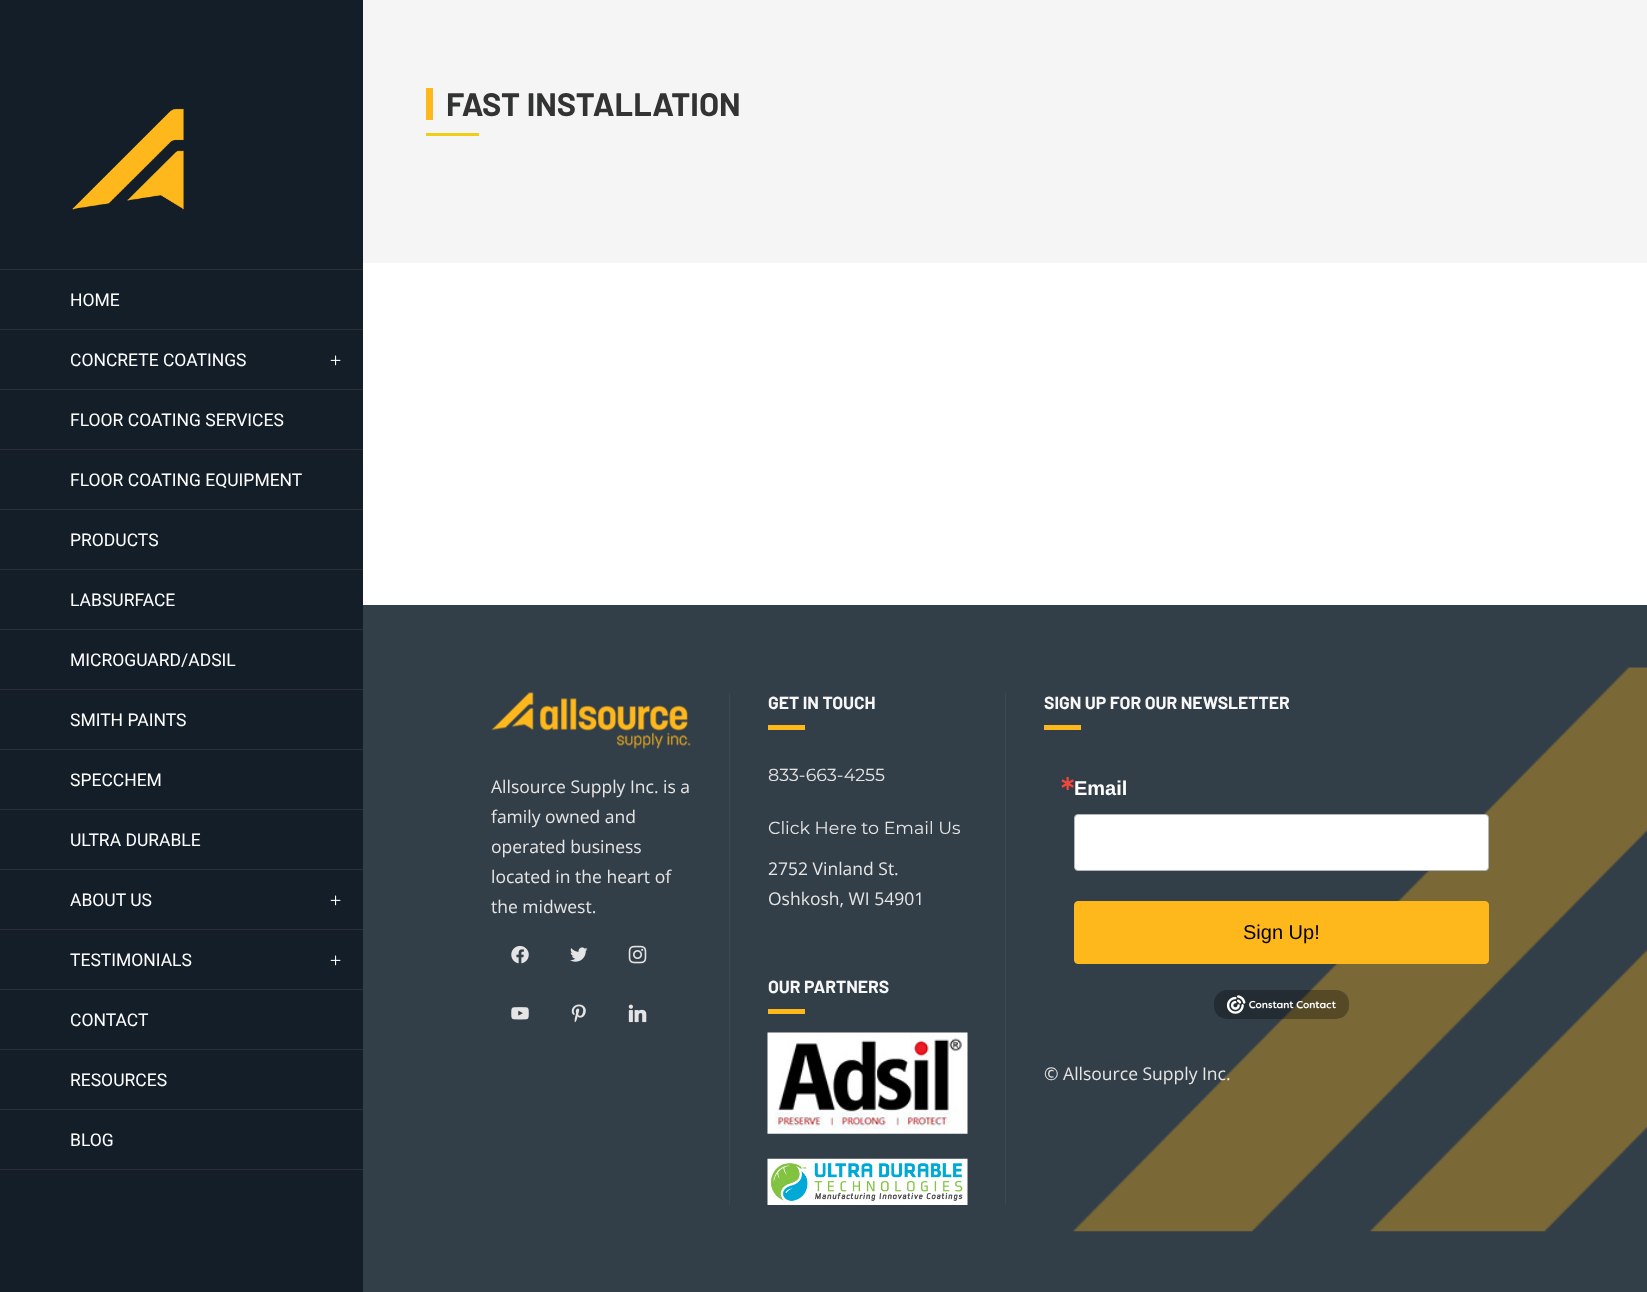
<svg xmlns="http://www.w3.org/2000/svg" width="1647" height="1292">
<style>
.a{font:bold 32.5px Barlow;fill:#323333}
.b{font:17.5px Roboto;fill:#fff}
.c{font:17.5px Open Sans;fill:#e6e5e5}
.d{font:bold 17.5px Barlow;fill:#f7f7f7}
.e{font:17.5px Montserrat;fill:#e6e5e5}
.f{font:bold 20px DejaVu Sans;fill:#f5463b}
.g{font:bold 20px Liberation Sans;fill:#fff}
.h{font:20px Liberation Sans;fill:#000}
</style>
<rect width="100%" height="100%" fill="#fff"/>
<path fill="#f6f5f5" d="M363 0h1284v263H363z"/>
<path fill="#ffb81c" d="M426 88h7v32H426z"/>
<path fill="#eecf16" d="M426 133h53v3H426z"/>
<path fill="#131e29" d="M0 0h363v1292H0z"/>
<image href="1.png" x="72" y="108" width="112" height="102"/>
<path fill="#2c3036" d="M0 269h363v1H0z"/>
<path fill="#2c3036" d="M0 329h363v1H0z"/>
<image href="2.png" x="330" y="355" width="11" height="11"/>
<path fill="#2c3036" d="M0 389h363v1H0z"/>
<path fill="#2c3036" d="M0 449h363v1H0z"/>
<path fill="#2c3036" d="M0 509h363v1H0z"/>
<path fill="#2c3036" d="M0 569h363v1H0z"/>
<path fill="#2c3036" d="M0 629h363v1H0z"/>
<path fill="#2c3036" d="M0 689h363v1H0z"/>
<path fill="#2c3036" d="M0 749h363v1H0z"/>
<path fill="#2c3036" d="M0 809h363v1H0z"/>
<path fill="#2c3036" d="M0 869h363v1H0z"/>
<image href="2.png" x="330" y="895" width="11" height="11"/>
<path fill="#2c3036" d="M0 929h363v1H0z"/>
<image href="2.png" x="330" y="955" width="11" height="11"/>
<path fill="#2c3036" d="M0 989h363v1H0z"/>
<path fill="#2c3036" d="M0 1049h363v1H0z"/>
<path fill="#2c3036" d="M0 1109h363v1H0z"/>
<path fill="#2c3036" d="M0 1169h363v1H0z"/>
<path fill="#333f48" d="M363 605h1284v687H363z"/>
<image href="3.png" x="1072" y="667" width="575" height="565"/>
<image href="4.png" x="491" y="692" width="200" height="57"/>
<image href="5.png" x="511" y="946" width="18" height="18"/>
<image href="6.png" x="570" y="947" width="18" height="15"/>
<image href="7.png" x="628" y="945" width="19" height="19"/>
<image href="8.png" x="511" y="1007" width="18" height="13"/>
<image href="9.png" x="571" y="1004" width="15" height="19"/>
<image href="10.png" x="628" y="1004" width="19" height="19"/>
<path fill="#384956" d="M729 693h1v512H729z"/>
<path fill="#ffb81c" d="M768 725h37v5H768z"/>
<path fill="#ffb81c" d="M768 1009h37v5H768z"/>
<image href="11.png" x="767" y="1032" width="201" height="102"/>
<image href="12.png" x="767" y="1158" width="201" height="47"/>
<path fill="#384956" d="M1005 693h1v512H1005z"/>
<path fill="#ffb81c" d="M1044 725h37v5H1044z"/>
<rect fill="#fff" stroke="#b0b6bb" x="1074.5" y="814.5" width="414" height="56" rx="3.5"/>
<rect fill="#ffb81c" stroke="#ffb81c" x="1074.5" y="901.5" width="414" height="62" rx="3.5"/>
<rect fill="#0000004d" x="1214" y="990" width="135" height="29" rx="13"/>
<image href="13.png" x="1226" y="995" width="110" height="19"/>
<text class="a" x="446" y="116">FAST INSTALLATION</text>
<text class="b" x="70" y="306">HOME</text>
<text class="b" x="70" y="366">CONCRETE COATINGS</text>
<text class="b" x="70" y="426">FLOOR COATING SERVICES</text>
<text class="b" x="70" y="486">FLOOR COATING EQUIPMENT</text>
<text class="b" x="70" y="546">PRODUCTS</text>
<text class="b" x="70" y="606">LABSURFACE</text>
<text class="b" x="70" y="666">MICROGUARD/ADSIL</text>
<text class="b" x="70" y="726">SMITH PAINTS</text>
<text class="b" x="70" y="786">SPECCHEM</text>
<text class="b" x="70" y="846">ULTRA DURABLE</text>
<text class="b" x="70" y="906">ABOUT US</text>
<text class="b" x="70" y="966">TESTIMONIALS</text>
<text class="b" x="70" y="1026">CONTACT</text>
<text class="b" x="70" y="1086">RESOURCES</text>
<text class="b" x="70" y="1146">BLOG</text>
<text class="c" x="491" y="793">Allsource Supply Inc. is a</text>
<text class="c" x="491" y="823">family owned and</text>
<text class="c" x="491" y="853">operated business</text>
<text class="c" x="491" y="883">located in the heart of</text>
<text class="c" x="491" y="913">the midwest.</text>
<text class="d" x="768" y="709">GET IN TOUCH</text>
<text class="e" x="768" y="781">833-663-4255</text>
<text class="e" x="768" y="834">Click Here to Email Us</text>
<text class="c" x="768" y="875">2752 Vinland St.</text>
<text class="c" x="768" y="905">Oshkosh, WI 54901</text>
<text class="d" x="768" y="993">OUR PARTNERS</text>
<text class="d" x="1044" y="709">SIGN UP FOR OUR NEWSLETTER</text>
<text class="f" x="1059" y="790">∗</text>
<text class="g" x="1074" y="795">Email</text>
<text class="h" x="1243" y="939">Sign Up!</text>
<text class="c" x="1044" y="1080">© Allsource Supply Inc.</text>
</svg>
